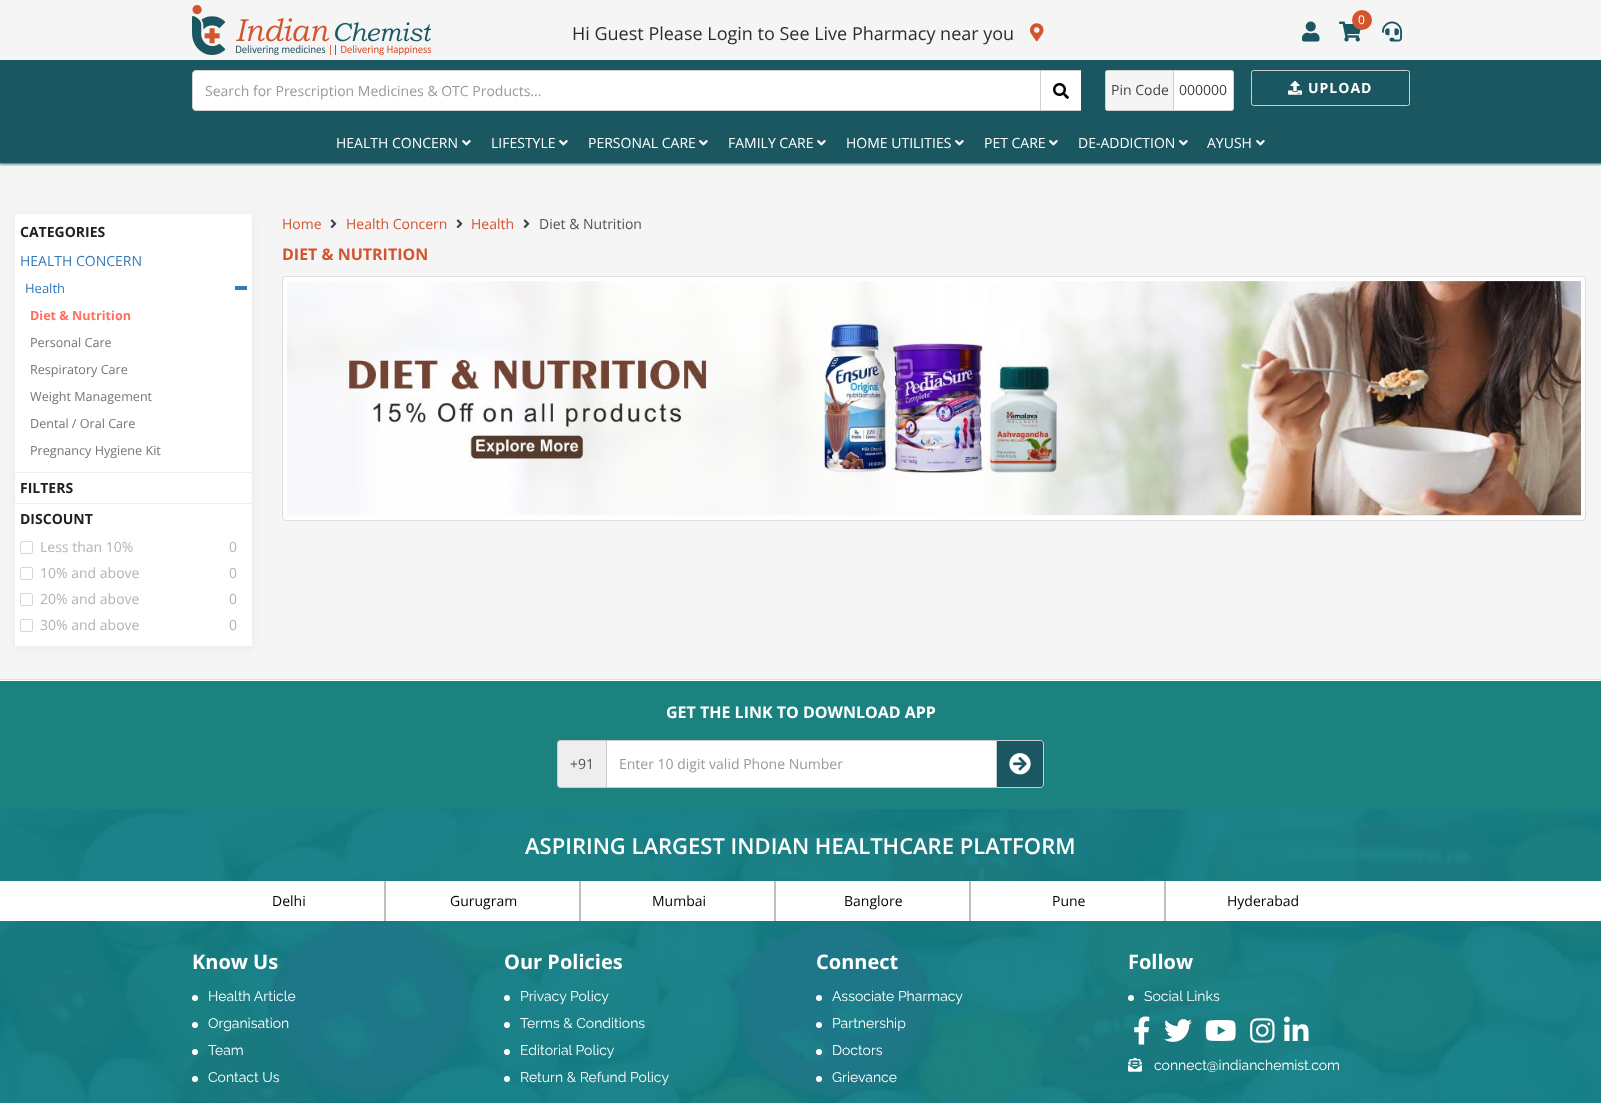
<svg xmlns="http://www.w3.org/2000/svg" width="1601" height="1103">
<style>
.a{font:12px Open Sans;fill:#fff}
.b{font:18px Open Sans;fill:#2b2b2f}
.c{font:14px Open Sans;fill:#999}
.d{font:14px Open Sans;fill:#444}
.e{font:bold 14px Open Sans;letter-spacing:1px;fill:#fff}
.f{font:14px Open Sans;fill:#fff}
.g{font:bold 14px Open Sans;fill:#212121}
.h{font:14px Open Sans;fill:#337ab7}
.i{font:13px Open Sans;fill:#337ab7}
.j{font:bold 12.6px Open Sans;fill:#ff6f61}
.k{font:12.6px Open Sans;fill:#757575}
.l{font:14px Open Sans;fill:#b3b3b3}
.m{font:14px Open Sans;fill:#d4542d}
.n{font:14px Open Sans;fill:#545353}
.o{font:bold 16px Open Sans;fill:#d4542d}
.p{font:bold 16px Open Sans;fill:#fff}
.q{font:600 22px Open Sans;fill:#fff}
.r{font:14px Open Sans;fill:#000}
.s{font:bold 20px Open Sans;fill:#fff}
.t{font:14px Raleway;fill:#fff}
</style>
<rect width="100%" height="100%" fill="#f5f5f5"/>
<path fill="#1b5761" filter="blur(1.5px)" d="M-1 -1h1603v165H-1z"/>
<path fill="#f5f5f5" d="M0 0h1601v60H0z"/>
<image href="1.png" x="192" y="5" width="239" height="50"/>
<image href="2.png" x="1339" y="21" width="22" height="21"/>
<circle fill="#d4542d" cx="1362" cy="20" r="10"/>
<image href="3.png" x="1302" y="21" width="18" height="21"/>
<image href="4.png" x="1382" y="21" width="20" height="21"/>
<image href="5.png" x="1030" y="23" width="14" height="19"/>
<path fill="#1b5761" d="M0 60h1601v103H0z"/>
<path fill="#fff" stroke="#d1d1d1" d="M196 70.5h844.5v40h-844.5c-2 0-3.5-1.5-3.5-3.5v-33c0-2 1.5-3.5 3.5-3.5z"/>
<path fill="#fff" d="M1041 71h40v39H1041z"/>
<path fill="#ccc" d="M1041 70h40v1H1041z"/>
<path fill="#ccc" d="M1041 110h40v1H1041z"/>
<image href="6.png" x="1053" y="83" width="16" height="16"/>
<rect fill="#fff" stroke="#d1d1d1" x="1105.5" y="70.5" width="128" height="40" rx="2"/>
<path fill="#f5f5f5" d="M1106 71h67v39H1106z"/>
<path fill="#ccc" d="M1173 71h1v39H1173z"/>
<rect fill="none" stroke="#ccc" x="1251.5" y="70.5" width="158" height="35" rx="2"/>
<image href="7.png" x="1288" y="80" width="14" height="15"/>
<image href="8.png" x="462" y="140" width="9" height="6"/>
<image href="8.png" x="559" y="140" width="9" height="6"/>
<image href="8.png" x="699" y="140" width="9" height="6"/>
<image href="8.png" x="817" y="140" width="9" height="6"/>
<image href="8.png" x="955" y="140" width="9" height="6"/>
<image href="8.png" x="1049" y="140" width="9" height="6"/>
<image href="8.png" x="1179" y="140" width="9" height="6"/>
<image href="8.png" x="1256" y="140" width="9" height="6"/>
<path fill="#0000000f" filter="blur(4px)" d="M15 215h237v433H15z"/>
<path fill="#fff" d="M15 214h237v432H15z"/>
<path fill="#f0f0f0" d="M15 472h237v1H15z"/>
<path fill="#337ab7" d="M235 286h12v4H235z"/>
<path fill="#f0f0f0" d="M15 503h237v1H15z"/>
<path fill="#f0f0f0" d="M15 646h237v1H15z"/>
<rect fill="none" stroke="#d6d6d6" x="20.5" y="541.5" width="12" height="12" rx="1.5"/>
<rect fill="none" stroke="#d6d6d6" x="20.5" y="567.5" width="12" height="12" rx="1.5"/>
<rect fill="none" stroke="#d6d6d6" x="20.5" y="593.5" width="12" height="12" rx="1.5"/>
<rect fill="none" stroke="#d6d6d6" x="20.5" y="619.5" width="12" height="12" rx="1.5"/>
<image href="9.png" x="330" y="219" width="7" height="10"/>
<image href="9.png" x="456" y="219" width="7" height="10"/>
<image href="9.png" x="523" y="219" width="7" height="10"/>
<rect fill="#fff" stroke="#ddd" x="282.5" y="276.5" width="1303" height="244" rx="3.5"/>
<image href="10.png" x="287" y="281" width="1294" height="235"/>
<path fill="#fff" d="M0 680h1601v1H0z"/>
<path fill="#ddd" d="M0 679h1601v1H0z"/>
<path fill="#1b827f" d="M0 681h1601v128H0z"/>
<path fill="#eee" d="M561 740h45v48h-45c-2 0-4-2-4-4v-40c0-2 2-4 4-4z"/>
<path fill="#ccc" fill-rule="evenodd" d="M561 740h45v48h-45c-2 0-4-2-4-4v-40c0-2 2-4 4-4zm0 1h45v46h-45c-2 0-3-1-3-3v-40c0-2 1-3 3-3z"/>
<path fill="#fff" stroke="#ccc" d="M606.5 740.5h390v47H606.5z"/>
<path fill="#1b5761" d="M997 740h43c2 0 4 2 4 4v40c0 2-2 4-4 4h-43z"/>
<path fill="#ccc" fill-rule="evenodd" d="M997 740h43c2 0 4 2 4 4v40c0 2-2 4-4 4h-43zm0 1h43c2 0 3 1 3 3v40c0 2-1 3-3 3h-43z"/>
<image href="11.png" x="1009" y="753" width="22" height="22"/>
<image href="12.png" x="0" y="809" width="1601" height="294"/>
<path fill="#fff" d="M0 881h1601v40H0z"/>
<path fill="#bfbfbf" d="M384 881h2v40H384z"/>
<path fill="#bfbfbf" d="M579 881h2v40H579z"/>
<path fill="#bfbfbf" d="M774 881h2v40H774z"/>
<path fill="#bfbfbf" d="M969 881h2v40H969z"/>
<path fill="#bfbfbf" d="M1164 881h2v40H1164z"/>
<circle fill="#fff" cx="195" cy="998" r="3"/>
<circle fill="#fff" cx="195" cy="1025" r="3"/>
<circle fill="#fff" cx="195" cy="1052" r="3"/>
<circle fill="#fff" cx="195" cy="1079" r="3"/>
<circle fill="#fff" cx="507" cy="998" r="3"/>
<circle fill="#fff" cx="507" cy="1025" r="3"/>
<circle fill="#fff" cx="507" cy="1052" r="3"/>
<circle fill="#fff" cx="507" cy="1079" r="3"/>
<circle fill="#fff" cx="819" cy="998" r="3"/>
<circle fill="#fff" cx="819" cy="1025" r="3"/>
<circle fill="#fff" cx="819" cy="1052" r="3"/>
<circle fill="#fff" cx="819" cy="1079" r="3"/>
<circle fill="#fff" cx="1131" cy="998" r="3"/>
<image href="13.png" x="1134" y="1016" width="16" height="29"/>
<image href="14.png" x="1164" y="1019" width="28" height="23"/>
<image href="15.png" x="1205" y="1020" width="31" height="21"/>
<image href="16.png" x="1250" y="1018" width="25" height="25"/>
<image href="17.png" x="1284" y="1016" width="25" height="25"/>
<image href="18.png" x="1128" y="1057" width="14" height="15"/>
<text class="a" x="1358" y="24">0</text>
<text class="b" x="572" y="40">Hi Guest Please Login to See Live Pharmacy near you</text>
<text class="c" x="205" y="96">Search for Prescription Medicines &amp; OTC Products...</text>
<text class="d" x="1111" y="95">Pin Code</text>
<text class="d" x="1179" y="95">000000</text>
<text class="e" x="1308" y="93">UPLOAD</text>
<text class="f" x="336" y="148">HEALTH CONCERN</text>
<text class="f" x="491" y="148">LIFESTYLE</text>
<text class="f" x="588" y="148">PERSONAL CARE</text>
<text class="f" x="728" y="148">FAMILY CARE</text>
<text class="f" x="846" y="148">HOME UTILITIES</text>
<text class="f" x="984" y="148">PET CARE</text>
<text class="f" x="1078" y="148">DE-ADDICTION</text>
<text class="f" x="1207" y="148">AYUSH</text>
<text class="g" x="20" y="237">CATEGORIES</text>
<text class="h" x="20" y="266">HEALTH CONCERN</text>
<text class="i" x="25" y="293">Health</text>
<text class="j" x="30" y="320">Diet &amp; Nutrition</text>
<text class="k" x="30" y="347">Personal Care</text>
<text class="k" x="30" y="374">Respiratory Care</text>
<text class="k" x="30" y="401">Weight Management</text>
<text class="k" x="30" y="428">Dental / Oral Care</text>
<text class="k" x="30" y="455">Pregnancy Hygiene Kit</text>
<text class="g" x="20" y="493">FILTERS</text>
<text class="g" x="20" y="524">DISCOUNT</text>
<text class="l" x="40" y="552">Less than 10%</text>
<text class="l" x="229" y="552">0</text>
<text class="l" x="40" y="578">10% and above</text>
<text class="l" x="229" y="578">0</text>
<text class="l" x="40" y="604">20% and above</text>
<text class="l" x="229" y="604">0</text>
<text class="l" x="40" y="630">30% and above</text>
<text class="l" x="229" y="630">0</text>
<text class="m" x="282" y="229">Home</text>
<text class="m" x="346" y="229">Health Concern</text>
<text class="m" x="471" y="229">Health</text>
<text class="n" x="539" y="229">Diet &amp; Nutrition</text>
<text class="o" x="282" y="260">DIET &amp; NUTRITION</text>
<text class="p" x="666" y="718">GET THE LINK TO DOWNLOAD APP</text>
<text class="n" x="570" y="769">+91</text>
<text class="c" x="619" y="769">Enter 10 digit valid Phone Number</text>
<text class="q" x="525" y="854">ASPIRING LARGEST INDIAN HEALTHCARE PLATFORM</text>
<text class="r" x="272" y="906">Delhi</text>
<text class="r" x="450" y="906">Gurugram</text>
<text class="r" x="652" y="906">Mumbai</text>
<text class="r" x="844" y="906">Banglore</text>
<text class="r" x="1052" y="906">Pune</text>
<text class="r" x="1227" y="906">Hyderabad</text>
<text class="s" x="192" y="969">Know Us</text>
<text class="t" x="208" y="1001">Health Article</text>
<text class="t" x="208" y="1028">Organisation</text>
<text class="t" x="208" y="1055">Team</text>
<text class="t" x="208" y="1082">Contact Us</text>
<text class="s" x="504" y="969">Our Policies</text>
<text class="t" x="520" y="1001">Privacy Policy</text>
<text class="t" x="520" y="1028">Terms &amp; Conditions</text>
<text class="t" x="520" y="1055">Editorial Policy</text>
<text class="t" x="520" y="1082">Return &amp; Refund Policy</text>
<text class="s" x="816" y="969">Connect</text>
<text class="t" x="832" y="1001">Associate Pharmacy</text>
<text class="t" x="832" y="1028">Partnership</text>
<text class="t" x="832" y="1055">Doctors</text>
<text class="t" x="832" y="1082">Grievance</text>
<text class="s" x="1128" y="969">Follow</text>
<text class="t" x="1144" y="1001">Social Links</text>
<text class="t" x="1154" y="1070">connect@indianchemist.com</text>
</svg>
